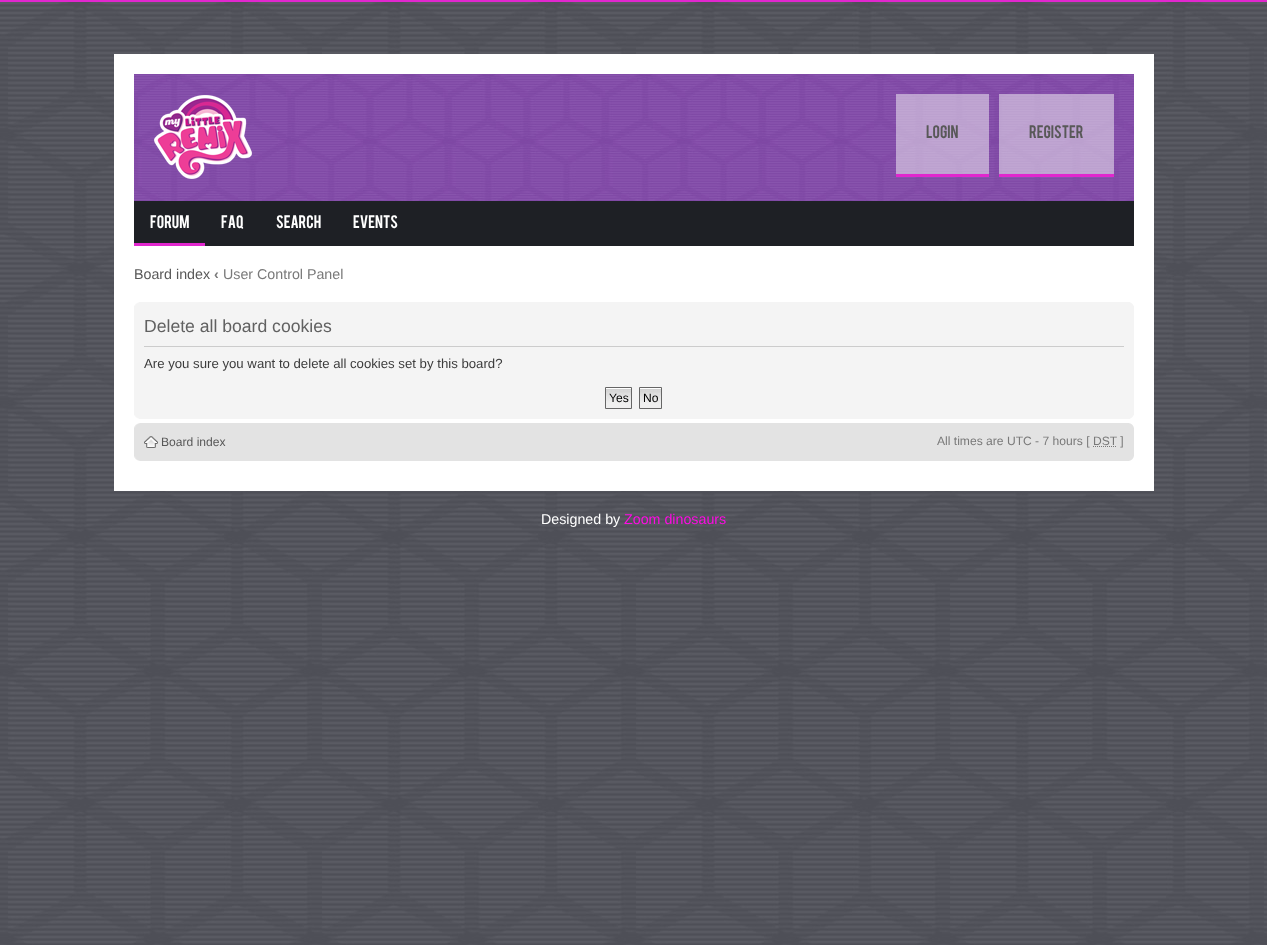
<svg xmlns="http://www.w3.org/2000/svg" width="1267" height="945">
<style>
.a{font:14.25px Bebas;fill:#585858}
.b{font:14.25px Bebas;fill:#fff}
.c{font:14.25px Liberation Sans;fill:#585858}
.d{font:bold 14.25px Liberation Sans;fill:#797979}
.e{font:14.25px Liberation Sans;fill:#797979}
.f{font:17.6px Liberation Sans;fill:#616161}
.g{font:13.2px Liberation Sans;fill:#3c3c3c}
.h{font:12.1px Liberation Sans;fill:#000}
.i{font:12.1px Liberation Sans;fill:#585858}
.j{font:12.1px Liberation Sans;fill:#797979}
.k{font:14.25px Liberation Sans;fill:#fff}
.l{font:14.25px Liberation Sans;fill:#fe0be4}
</style>
<rect width="100%" height="100%" fill="#fff"/>
<image href="1.png" x="0" y="539" width="1267" height="406"/>
<image href="2.png" x="0" y="2" width="1267" height="537"/>
<path fill="#e127ce" d="M0 0h1267v2H0z"/>
<path fill="#fff" d="M114 54h1040v437H114z"/>
<image href="3.png" x="134" y="74" width="1000" height="127"/>
<image href="4.png" x="154" y="95" width="98" height="84"/>
<path fill="#f7f7f780" d="M896 94h93v80H896z"/>
<path fill="#e127ce" d="M896 174h93v3H896z"/>
<path fill="#f7f7f780" d="M999 94h115v80H999z"/>
<path fill="#e127ce" d="M999 174h115v3H999z"/>
<path fill="#1e2025" d="M134 201h1000v45H134z"/>
<path fill="#e127ce" d="M134 243h71v3H134z"/>
<path fill="#f4f4f4" d="M134 302h1000v117H134z"/>
<image href="5.png" x="134" y="302" width="5" height="4"/>
<image href="6.png" x="1130" y="302" width="4" height="4"/>
<path fill="#ccc" d="M144 346h980v1H144z"/>
<image href="7.png" x="606" y="388" width="25" height="20"/>
<path fill="none" stroke="#666" d="M605.5 387.5h26v21H605.5z"/>
<image href="8.png" x="640" y="388" width="21" height="20"/>
<path fill="none" stroke="#666" d="M639.5 387.5h22v21H639.5z"/>
<image href="9.png" x="134" y="415" width="5" height="4"/>
<image href="10.png" x="1130" y="415" width="4" height="4"/>
<path fill="#e3e3e3" d="M134 423h1000v38H134z"/>
<image href="11.png" x="134" y="423" width="6" height="5"/>
<image href="12.png" x="1129" y="423" width="5" height="5"/>
<image href="13.png" x="144" y="436" width="14" height="12"/>
<path fill="none" stroke="#797979" stroke-dasharray="1 1" d="M1093 446.5h24"/>
<image href="14.png" x="134" y="456" width="6" height="5"/>
<image href="15.png" x="1129" y="456" width="5" height="5"/>
<text class="a" x="926" y="138">Login</text>
<text class="a" x="1029" y="138">Register</text>
<text class="b" x="150" y="228">Forum</text>
<text class="b" x="221" y="228">FAQ</text>
<text class="b" x="276" y="228">Search</text>
<text class="b" x="353" y="228">Events</text>
<text class="c" x="134" y="279">Board index</text>
<text class="d" x="214" y="279">‹</text>
<text class="e" x="223" y="279">User Control Panel</text>
<text class="f" x="144" y="332">Delete all board cookies</text>
<text class="g" x="144" y="368">Are you sure you want to delete all cookies set by this board?</text>
<text class="h" x="609" y="402">Yes</text>
<text class="h" x="643" y="402">No</text>
<text class="i" x="161" y="446">Board index</text>
<text class="j" x="937" y="445">All times are UTC - 7 hours [ DST ]</text>
<text class="k" x="541" y="524">Designed by</text>
<text class="l" x="624" y="524">Zoom dinosaurs</text>
</svg>
